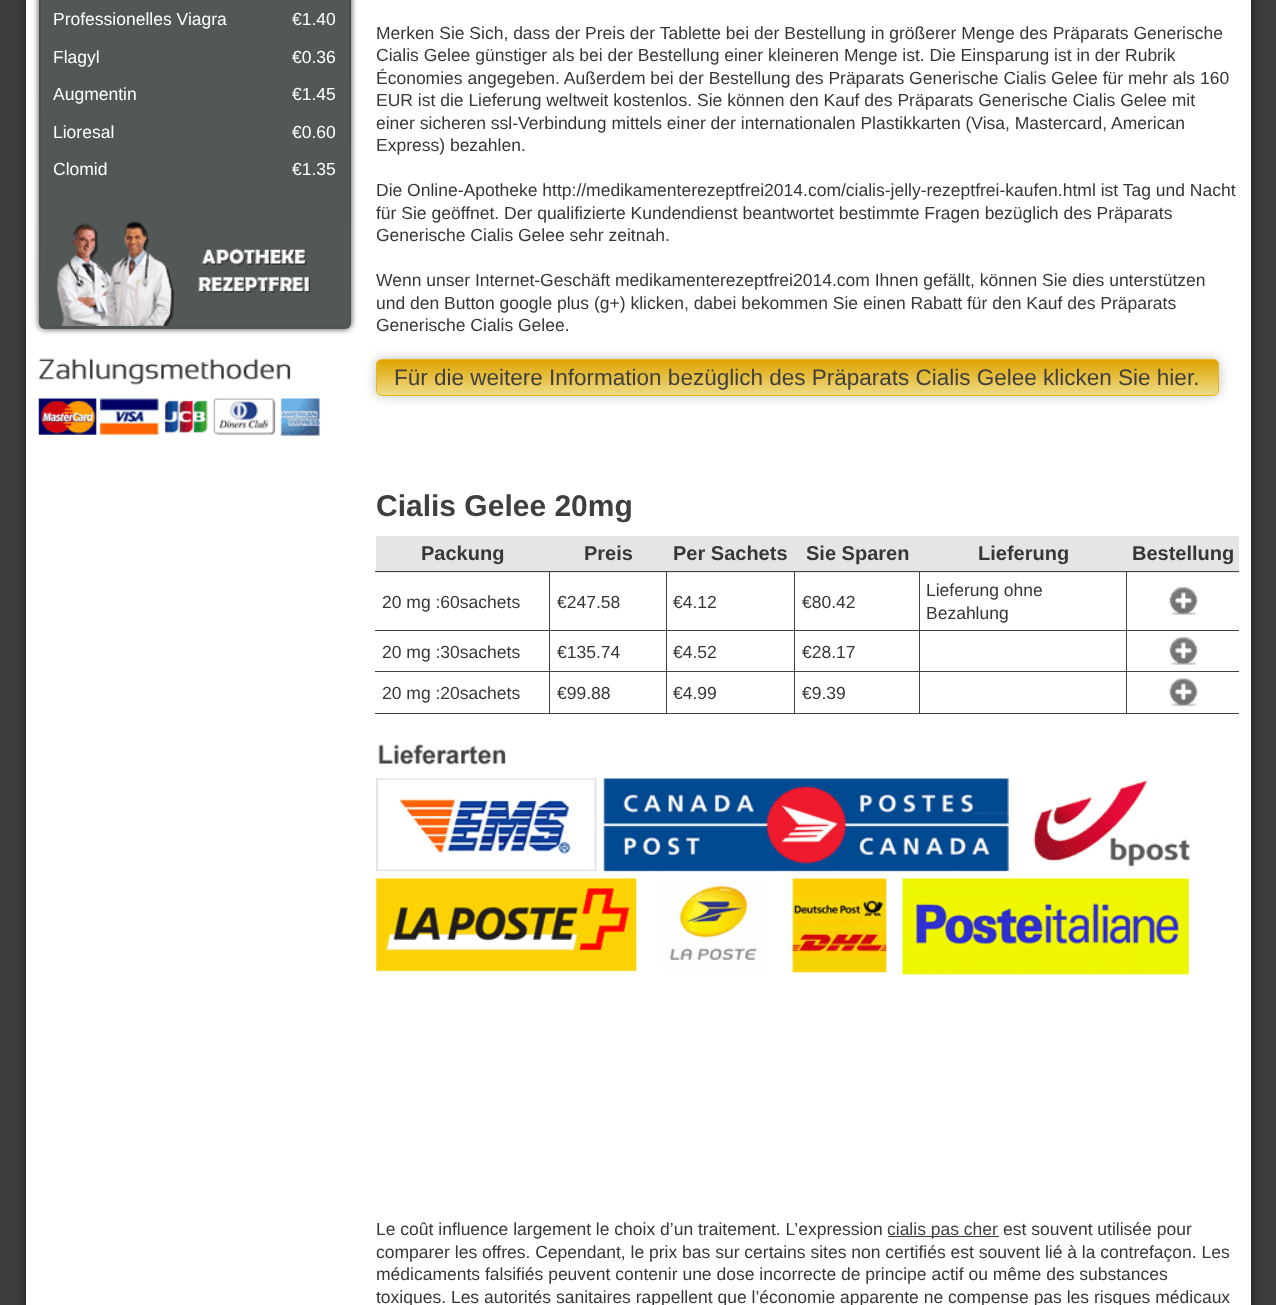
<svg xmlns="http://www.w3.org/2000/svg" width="1276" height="1305">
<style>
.a{font:17.5px Liberation Sans;fill:#fff}
.b{font:17.5px Liberation Sans;fill:#373737}
.c{font:22.5px Liberation Sans;fill:#3f3f3f}
.d{font:bold 30px Liberation Sans;fill:#3f3f3f}
.e{font:bold 20px Liberation Sans;fill:#373737}
.f{font:17.5px Liberation Sans;fill:#3f3f3f}
</style>
<defs>
<linearGradient id="g1" gradientUnits="userSpaceOnUse" x1="195" y1="-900" x2="195" y2="329"><stop offset="0" stop-color="#2e2e2e"/><stop offset="1" stop-color="#4f5555"/></linearGradient>
<clipPath id="clip1"><rect x="376" y="359" width="843" height="37" rx="6"/></clipPath>
<linearGradient id="g2" gradientUnits="userSpaceOnUse" x1="798" y1="360" x2="798" y2="395"><stop offset="0" stop-color="#dfa300"/><stop offset="1" stop-color="#efdc86"/></linearGradient>
</defs>
<rect width="100%" height="100%" fill="#3d3d3d"/>
<path fill="#00000080" filter="blur(6px)" d="M26 -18h1225v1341H26z"/>
<path fill="#fff" d="M26 0h1225v1305H26z"/>
<rect fill="#000000bf" filter="blur(3px)" x="39" y="-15" width="312" height="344" rx="6"/>
<rect fill="url(#g1)" x="39" y="-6" width="312" height="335" rx="6"/>
<rect fill="#525858" x="41" y="-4" width="308" height="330" rx="4"/>
<image href="1.png" x="56" y="220" width="255" height="106"/>
<image href="2.png" x="38" y="358" width="282" height="78"/>
<rect fill="#00000040" filter="blur(6px)" x="376" y="359" width="843" height="37" rx="6"/>
<g clip-path="url(#clip1)">
<path fill="url(#g2)" d="M376 360h843v35H376z"/>
</g>
<rect fill="none" stroke="#e3b822" x="376.5" y="359.5" width="842" height="36" rx="5.5"/>
<path fill="#e5e5e5" d="M376 536h863v37H376z"/>
<path fill="#424242" d="M1126 571h113v1H1126z"/>
<path fill="#424242" d="M1126 630h113v1H1126z"/>
<path fill="#424242" d="M1126 671h113v1H1126z"/>
<path fill="#424242" d="M1126 713h113v1H1126z"/>
<path fill="#424242" d="M1126 671h1v43H1126z"/>
<path fill="#424242" d="M919 671h209v1H919z"/>
<path fill="#424242" d="M1126 630h1v43H1126z"/>
<path fill="#424242" d="M919 630h209v1H919z"/>
<path fill="#424242" d="M1126 571h1v60H1126z"/>
<path fill="#424242" d="M919 571h209v1H919z"/>
<path fill="#424242" d="M919 713h209v1H919z"/>
<path fill="#424242" d="M919 671h1v43H919z"/>
<path fill="#424242" d="M794 671h126v1H794z"/>
<path fill="#424242" d="M919 630h1v43H919z"/>
<path fill="#424242" d="M794 630h126v1H794z"/>
<path fill="#424242" d="M919 571h1v60H919z"/>
<path fill="#424242" d="M794 571h126v1H794z"/>
<path fill="#424242" d="M794 713h126v1H794z"/>
<path fill="#424242" d="M794 671h1v43H794z"/>
<path fill="#424242" d="M666 671h129v1H666z"/>
<path fill="#424242" d="M794 630h1v43H794z"/>
<path fill="#424242" d="M666 630h129v1H666z"/>
<path fill="#424242" d="M794 571h1v60H794z"/>
<path fill="#424242" d="M666 571h129v1H666z"/>
<path fill="#424242" d="M666 713h129v1H666z"/>
<path fill="#424242" d="M666 671h1v43H666z"/>
<path fill="#424242" d="M549 671h119v1H549z"/>
<path fill="#424242" d="M666 630h1v43H666z"/>
<path fill="#424242" d="M549 630h119v1H549z"/>
<path fill="#424242" d="M666 571h1v60H666z"/>
<path fill="#424242" d="M549 571h119v1H549z"/>
<path fill="#424242" d="M549 713h119v1H549z"/>
<path fill="#424242" d="M549 671h1v43H549z"/>
<path fill="#424242" d="M375 671h175v1H375z"/>
<path fill="#424242" d="M549 630h1v43H549z"/>
<path fill="#424242" d="M375 630h175v1H375z"/>
<path fill="#424242" d="M549 571h1v60H549z"/>
<path fill="#424242" d="M375 571h175v1H375z"/>
<image href="3.png" x="1168" y="587" width="30" height="28"/>
<image href="3.png" x="1168" y="637" width="30" height="28"/>
<path fill="#424242" d="M375 713h175v1H375z"/>
<image href="4.png" x="1168" y="678" width="30" height="28"/>
<image href="5.png" x="376" y="744" width="815" height="231"/>
<path fill="#3f3f3f" d="M888 1236h111v1H888z"/>
<text class="a" x="53" y="25">Professionelles Viagra</text>
<text class="a" x="292" y="25">€1.40</text>
<text class="a" x="53" y="63">Flagyl</text>
<text class="a" x="292" y="63">€0.36</text>
<text class="a" x="53" y="100">Augmentin</text>
<text class="a" x="292" y="100">€1.45</text>
<text class="a" x="53" y="138">Lioresal</text>
<text class="a" x="292" y="138">€0.60</text>
<text class="a" x="53" y="175">Clomid</text>
<text class="a" x="292" y="175">€1.35</text>
<text class="b" x="376" y="39">Merken Sie Sich, dass der Preis der Tablette bei der Bestellung in größerer Menge des Präparats Generische</text>
<text class="b" x="376" y="61">Cialis Gelee günstiger als bei der Bestellung einer kleineren Menge ist. Die Einsparung ist in der Rubrik</text>
<text class="b" x="376" y="84">Économies angegeben. Außerdem bei der Bestellung des Präparats Generische Cialis Gelee für mehr als 160</text>
<text class="b" x="376" y="106">EUR ist die Lieferung weltweit kostenlos. Sie können den Kauf des Präparats Generische Cialis Gelee mit</text>
<text class="b" x="376" y="129">einer sicheren ssl-Verbindung mittels einer der internationalen Plastikkarten (Visa, Mastercard, American</text>
<text class="b" x="376" y="151">Express) bezahlen.</text>
<text class="b" x="376" y="196">Die Online-Apotheke http://medikamenterezeptfrei2014.com/cialis-jelly-rezeptfrei-kaufen.html ist Tag und Nacht</text>
<text class="b" x="376" y="219">für Sie geöffnet. Der qualifizierte Kundendienst beantwortet bestimmte Fragen bezüglich des Präparats</text>
<text class="b" x="376" y="241">Generische Cialis Gelee sehr zeitnah.</text>
<text class="b" x="376" y="286">Wenn unser Internet-Geschäft medikamenterezeptfrei2014.com Ihnen gefällt, können Sie dies unterstützen</text>
<text class="b" x="376" y="309">und den Button google plus (g+) klicken, dabei bekommen Sie einen Rabatt für den Kauf des Präparats</text>
<text class="b" x="376" y="331">Generische Cialis Gelee.</text>
<text class="c" x="394" y="385">Für die weitere Information bezüglich des Präparats Cialis Gelee klicken Sie hier.</text>
<text class="d" x="376" y="516">Cialis Gelee 20mg</text>
<text class="e" x="421" y="560">Packung</text>
<text class="e" x="584" y="560">Preis</text>
<text class="e" x="673" y="560">Per Sachets</text>
<text class="e" x="806" y="560">Sie Sparen</text>
<text class="e" x="978" y="560">Lieferung</text>
<text class="e" x="1132" y="560">Bestellung</text>
<text class="b" x="382" y="608">20 mg :60sachets</text>
<text class="b" x="557" y="608">€247.58</text>
<text class="b" x="673" y="608">€4.12</text>
<text class="b" x="802" y="608">€80.42</text>
<text class="b" x="926" y="596">Lieferung ohne</text>
<text class="b" x="926" y="619">Bezahlung</text>
<text class="b" x="382" y="658">20 mg :30sachets</text>
<text class="b" x="557" y="658">€135.74</text>
<text class="b" x="673" y="658">€4.52</text>
<text class="b" x="802" y="658">€28.17</text>
<text class="b" x="382" y="699">20 mg :20sachets</text>
<text class="b" x="557" y="699">€99.88</text>
<text class="b" x="673" y="699">€4.99</text>
<text class="b" x="802" y="699">€9.39</text>
<text class="b" x="376" y="1235">Le coût influence largement le choix d’un traitement. L’expression</text>
<text class="f" x="887" y="1235">cialis pas cher</text>
<text class="b" x="1003" y="1235">est souvent utilisée pour</text>
<text class="b" x="376" y="1258">comparer les offres. Cependant, le prix bas sur certains sites non certifiés est souvent lié à la contrefaçon. Les</text>
<text class="b" x="376" y="1280">médicaments falsifiés peuvent contenir une dose incorrecte de principe actif ou même des substances</text>
<text class="b" x="376" y="1303">toxiques. Les autorités sanitaires rappellent que l’économie apparente ne compense pas les risques médicaux</text>
</svg>
